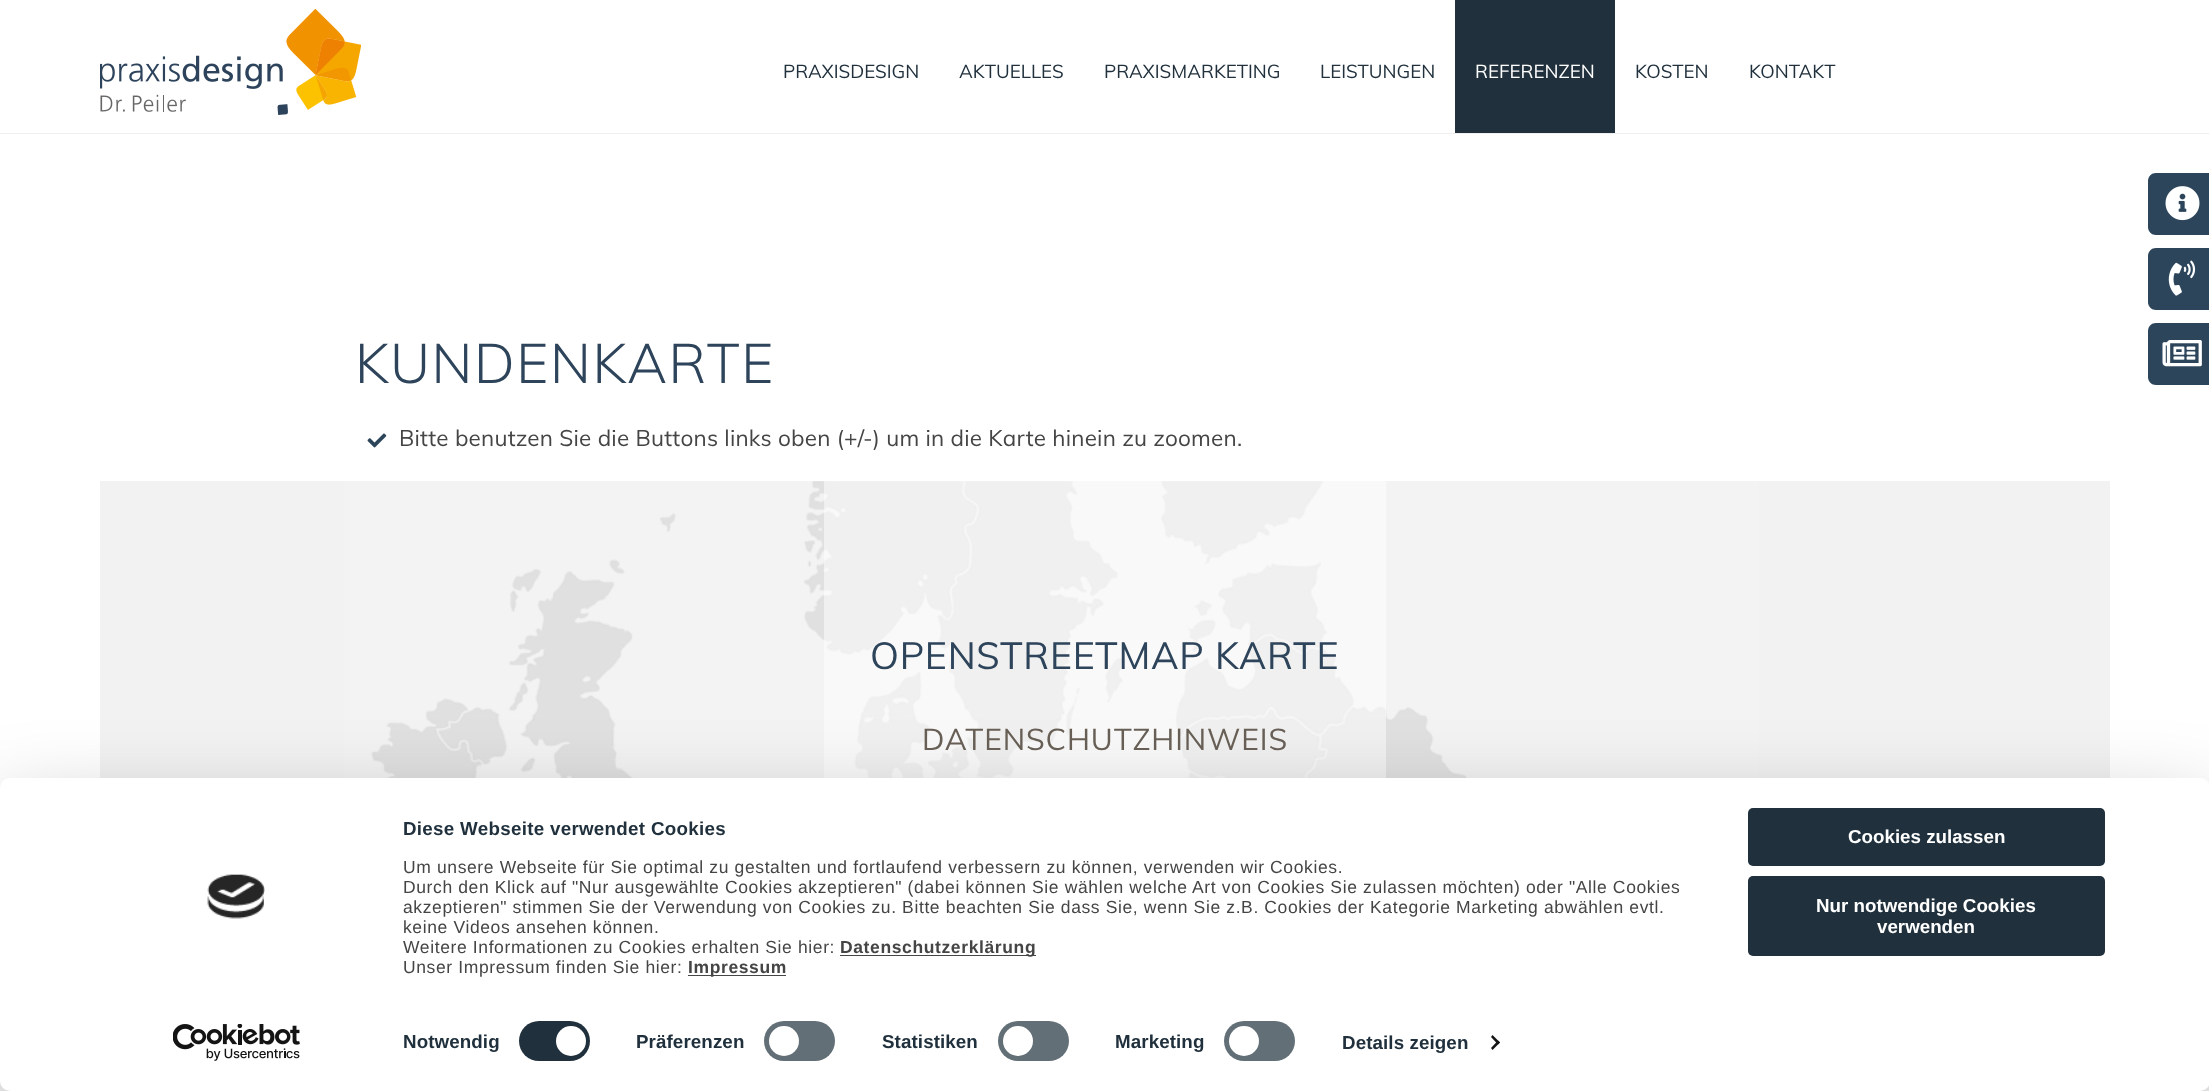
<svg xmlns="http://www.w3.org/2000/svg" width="2209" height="1091">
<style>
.a{font:18.75px Muli;fill:#20313d}
.b{font:18.75px Muli;fill:#fff}
.c{font:300 55px Muli;letter-spacing:1.6px;fill:#2d445b}
.d{font:22.5px Muli;letter-spacing:0.22px;fill:#454545}
.e{font:37.5px Muli;letter-spacing:0.75px;fill:#2d445b}
.f{font:30px Muli;letter-spacing:0.9px;fill:#675f55}
.g{font:bold 18.75px Liberation Sans;letter-spacing:0.3px;fill:#20313d}
.h{font:17.5px Liberation Sans;letter-spacing:0.62px;fill:#454545}
.i{font:bold 17.5px Liberation Sans;letter-spacing:0.62px;fill:#454545}
.j{font:bold 18.75px Liberation Sans;letter-spacing:0.1px;fill:#20313d}
.k{font:bold 18.75px Liberation Sans;fill:#fff}
</style>
<rect width="100%" height="100%" fill="#fff"/>
<path fill="#efefef" d="M0 133h2209v1H0z"/>
<image href="1.png" x="100" y="9" width="261" height="106"/>
<path fill="#20313d" d="M1455 0h160v133H1455z"/>
<path fill="#2d455b" d="M2156 173h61v62h-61c-4.5 0-8-3.5-8-8v-46c0-4.5 3.5-8 8-8z"/>
<image href="2.png" x="2165" y="186" width="35" height="35"/>
<path fill="#2d455b" d="M2156 248h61v62h-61c-4.5 0-8-3.5-8-8v-46c0-4.5 3.5-8 8-8z"/>
<image href="3.png" x="2168" y="260" width="28" height="36"/>
<path fill="#2d455b" d="M2156 323h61v62h-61c-4.5 0-8-3.5-8-8v-46c0-4.5 3.5-8 8-8z"/>
<image href="4.png" x="2162" y="340" width="40" height="27"/>
<image href="5.png" x="367" y="433" width="20" height="15"/>
<path fill="#f2f2f2" d="M100 481h2010v297H100z"/>
<image href="6.png" x="344" y="481" width="1415" height="297"/>
<path fill="#ffffff80" d="M824 481h562v297H824z"/>
<rect fill="#0000004d" filter="blur(44px)" y="815" width="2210" height="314" rx="10"/>
<rect fill="#fff" y="778" width="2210" height="313" rx="10"/>
<image href="7.png" x="207" y="874" width="58" height="45"/>
<image href="8.png" x="173" y="1024" width="127" height="37"/>
<path fill="#454545" d="M840 955h196v1H840z"/>
<path fill="#454545" d="M688 975h98v1H688z"/>
<rect fill="#20313d" x="519" y="1021" width="71" height="40" rx="20"/>
<circle fill="#fff" cx="571" cy="1041" r="15"/>
<rect fill="#636f77" x="764" y="1021" width="71" height="40" rx="20"/>
<circle fill="#fff" cx="784" cy="1041" r="15"/>
<rect fill="#636f77" x="998" y="1021" width="71" height="40" rx="20"/>
<circle fill="#fff" cx="1018" cy="1041" r="15"/>
<rect fill="#636f77" x="1224" y="1021" width="71" height="40" rx="20"/>
<circle fill="#fff" cx="1244" cy="1041" r="15"/>
<path fill="#141414" d="M1492.5 1035l7.5 7.5l-2 2l-7-7.5z"/>
<path fill="#141414" d="M1498 1040.5l2 2l-7.5 7.5l-1.5-2z"/>
<rect fill="#20313d" x="1748" y="808" width="357" height="58" rx="5"/>
<rect fill="#20313d" x="1748" y="876" width="357" height="80" rx="5"/>
<text class="a" x="783" y="78">PRAXISDESIGN</text>
<text class="a" x="959" y="78">AKTUELLES</text>
<text class="a" x="1104" y="78">PRAXISMARKETING</text>
<text class="a" x="1320" y="78">LEISTUNGEN</text>
<text class="b" x="1475" y="78">REFERENZEN</text>
<text class="a" x="1635" y="78">KOSTEN</text>
<text class="a" x="1749" y="78">KONTAKT</text>
<text class="c" x="355" y="383">KUNDENKARTE</text>
<text class="d" x="399" y="446">Bitte benutzen Sie die Buttons links oben (+/-) um in die Karte hinein zu zoomen.</text>
<text class="e" x="870" y="669">OPENSTREETMAP KARTE</text>
<text class="f" x="922" y="750">DATENSCHUTZHINWEIS</text>
<text class="g" x="403" y="835">Diese Webseite verwendet Cookies</text>
<text class="h" x="403" y="873">Um unsere Webseite für Sie optimal zu gestalten und fortlaufend verbessern zu können, verwenden wir Cookies.</text>
<text class="h" x="403" y="893">Durch den Klick auf "Nur ausgewählte Cookies akzeptieren" (dabei können Sie wählen welche Art von Cookies Sie zulassen möchten) oder "Alle Cookies</text>
<text class="h" x="403" y="913">akzeptieren" stimmen Sie der Verwendung von Cookies zu. Bitte beachten Sie dass Sie, wenn Sie z.B. Cookies der Kategorie Marketing abwählen evtl.</text>
<text class="h" x="403" y="933">keine Videos ansehen können.</text>
<text class="h" x="403" y="953">Weitere Informationen zu Cookies erhalten Sie hier:</text>
<text class="i" x="840" y="953">Datenschutzerklärung</text>
<text class="h" x="403" y="973">Unser Impressum finden Sie hier:</text>
<text class="i" x="688" y="973">Impressum</text>
<text class="j" x="403" y="1048">Notwendig</text>
<text class="j" x="636" y="1048">Präferenzen</text>
<text class="j" x="882" y="1048">Statistiken</text>
<text class="j" x="1115" y="1048">Marketing</text>
<text class="j" x="1342" y="1049">Details zeigen</text>
<text class="k" x="1848" y="843">Cookies zulassen</text>
<text class="k" x="1816" y="912">Nur notwendige Cookies</text>
<text class="k" x="1877" y="933">verwenden</text>
</svg>
